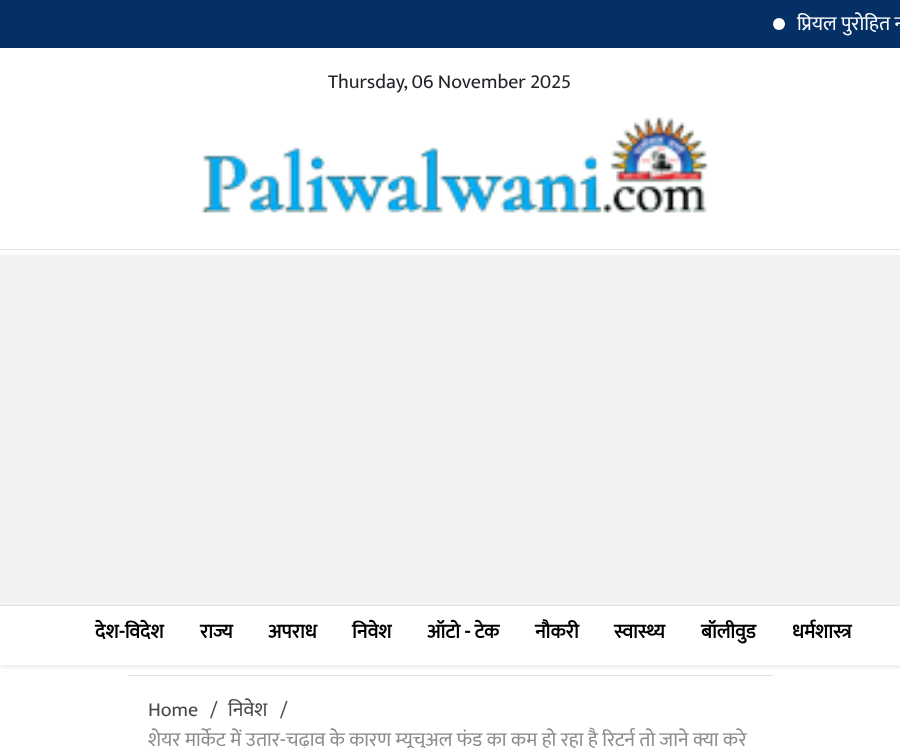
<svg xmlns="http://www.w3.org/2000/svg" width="900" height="748">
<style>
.a{font:20px Mukta;fill:#fff}
.b{font:20px Mukta;fill:#212529}
.c{font:bold 20px Mukta;fill:#000}
.d{font:20px Mukta;fill:#484848}
.e{font:20px Mukta;fill:#8b8b8b}
</style>
<defs>
<clipPath id="clip1"><path d="M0 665h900v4H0z"/></clipPath>
</defs>
<rect width="100%" height="100%" fill="#fff"/>
<path fill="#053065" d="M0 0h900v48H0z"/>
<circle fill="#fff" cx="779" cy="24" r="6"/>
<path fill="#dee2e6" d="M0 249h900v1H0z"/>
<image href="1.png" x="201" y="117" width="509" height="96"/>
<path fill="#f2f2f2" d="M0 255h900v350H0z"/>
<path fill="#dee2e6" d="M128 675h645v1H128z"/>
<g clip-path="url(#clip1)">
<path fill="#00000012" filter="blur(2.5px)" d="M0 608h900v60H0z"/>
</g>
<path fill="#dee2e6" d="M0 605h900v1H0z"/>
<text class="a" x="797" y="30">प्रियल पुरोहित न</text>
<text class="b" x="328" y="88">Thursday, 06 November 2025</text>
<text class="c" x="95" y="638">देश-विदेश</text>
<text class="c" x="200" y="638">राज्य</text>
<text class="c" x="268" y="638">अपराध</text>
<text class="c" x="352" y="638">निवेश</text>
<text class="c" x="427" y="638">ऑटो - टेक</text>
<text class="c" x="535" y="638">नौकरी</text>
<text class="c" x="614" y="638">स्वास्थ्य</text>
<text class="c" x="701" y="638">बॉलीवुड</text>
<text class="c" x="792" y="638">धर्मशास्त्र</text>
<text class="d" x="148" y="716">Home</text>
<text class="d" x="210" y="716">/</text>
<text class="d" x="228" y="716">निवेश</text>
<text class="d" x="280" y="716">/</text>
<text class="e" x="148" y="746">शेयर मार्केट में उतार-चढ़ाव के कारण म्यूचुअल फंड का कम हो रहा है रिटर्न तो जाने क्या करे</text>
</svg>
